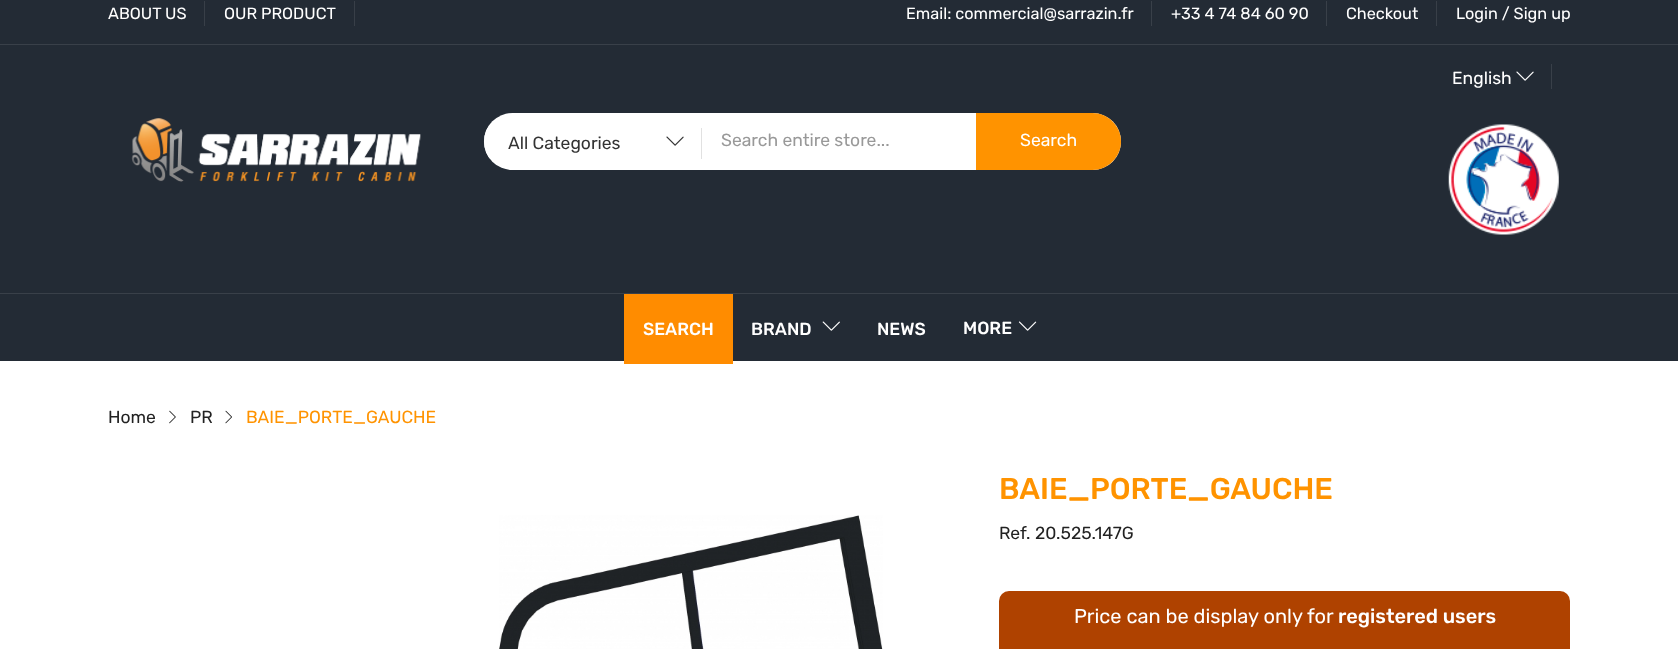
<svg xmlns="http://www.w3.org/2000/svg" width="1678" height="649">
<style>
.a{font:16.25px Rubik;fill:#fff}
.b{font:17.5px Rubik;fill:#fff}
.c{font:17.5px Rubik;fill:#333}
.d{font:17.5px Rubik;fill:#999}
.e{font:500 17.5px Rubik;fill:#fff}
.f{font:17.5px Rubik;fill:#222}
.g{font:17.5px Rubik;fill:#ff9300}
.h{font:500 30px Rubik;fill:#ff9300}
.i{font:20px Rubik;fill:#fff}
.j{font:500 20px Rubik;fill:#fff}
</style>
<defs>
<clipPath id="clip1"><rect x="484" y="113" width="637" height="57" rx="28.5"/></clipPath>
</defs>
<rect width="100%" height="100%" fill="#fff"/>
<path fill="#232b35" d="M0 0h1678v361H0z"/>
<path fill="#394049" d="M0 44h1678v1H0z"/>
<path fill="#383f48" d="M204 1h1v25H204z"/>
<path fill="#383f48" d="M354 1h1v25H354z"/>
<path fill="#394049" d="M1151 1h1v25H1151z"/>
<path fill="#394049" d="M1326 1h1v25H1326z"/>
<path fill="#383f48" d="M1436 1h1v25H1436z"/>
<image href="1.png" x="1516" y="71" width="18" height="10"/>
<path fill="#394049" d="M1551 64h1v25H1551z"/>
<image href="2.png" x="131" y="118" width="290" height="64"/>
<rect fill="#fff" x="484" y="113" width="637" height="57" rx="28.5"/>
<g clip-path="url(#clip1)">
<path fill="#fff" d="M484 128h219v31H484z"/>
</g>
<path fill="#e1e1e1" d="M701 128h1v31H701z"/>
<image href="3.png" x="666" y="136" width="18" height="10"/>
<path fill="#ff9300" d="M976 113h116.5c15.5 0 28.5 13 28.5 28.5c0 15.5-13 28.5-28.5 28.5h-116.5z"/>
<image href="4.png" x="1448" y="124" width="111" height="111"/>
<path fill="#394049" d="M0 293h1678v1H0z"/>
<path fill="#ff8c00" d="M624 294h109v70H624z"/>
<image href="5.png" x="822" y="321" width="18" height="10"/>
<image href="6.png" x="1018" y="321" width="19" height="10"/>
<image href="7.png" x="169" y="410" width="7" height="14"/>
<image href="8.png" x="225" y="410" width="7" height="14"/>
<image href="9.png" x="499" y="515" width="384" height="134"/>
<rect fill="#af4200" x="999" y="591" width="571" height="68" rx="10"/>
<text class="a" x="108" y="19">ABOUT US</text>
<text class="a" x="224" y="19">OUR PRODUCT</text>
<text class="a" x="906" y="19">Email: commercial@sarrazin.fr</text>
<text class="a" x="1171" y="19">+33 4 74 84 60 90</text>
<text class="a" x="1346" y="19">Checkout</text>
<text class="a" x="1456" y="19">Login / Sign up</text>
<text class="b" x="1452" y="84">English</text>
<text class="c" x="508" y="149">All Categories</text>
<text class="d" x="721" y="146">Search entire store...</text>
<text class="b" x="1020" y="146">Search</text>
<text class="e" x="643" y="335">SEARCH</text>
<text class="e" x="751" y="335">BRAND</text>
<text class="e" x="877" y="335">NEWS</text>
<text class="e" x="963" y="334">MORE</text>
<text class="f" x="108" y="423">Home</text>
<text class="f" x="190" y="423">PR</text>
<text class="g" x="246" y="423">BAIE_PORTE_GAUCHE</text>
<text class="h" x="999" y="499">BAIE_PORTE_GAUCHE</text>
<text class="f" x="999" y="539">Ref.</text>
<text class="f" x="1035" y="539">20.525.147G</text>
<text class="i" x="1074" y="623">Price can be display only for</text>
<text class="j" x="1338" y="623">registered users</text>
</svg>
